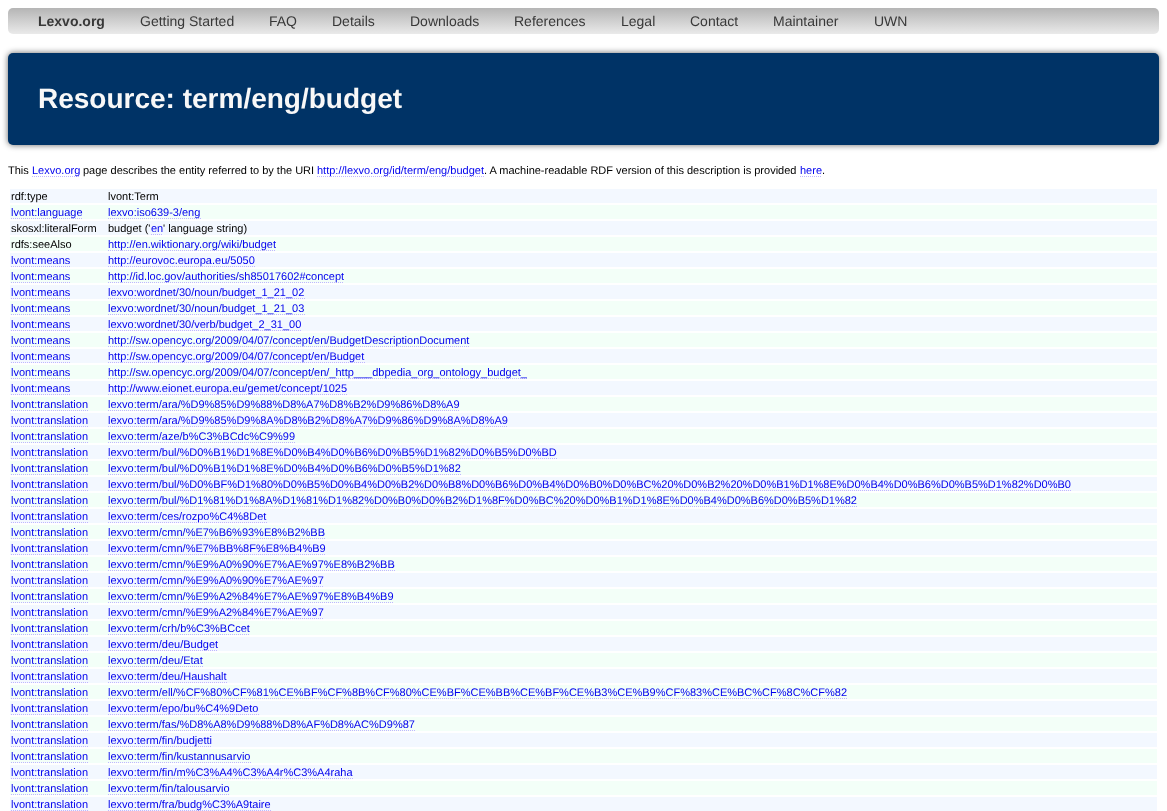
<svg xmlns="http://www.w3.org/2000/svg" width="1167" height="811">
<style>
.a{font:bold 14px Liberation Sans;fill:#383838}
.b{font:14px Liberation Sans;fill:#383838}
.c{font:bold 28px Liberation Sans;fill:#f8f8f8}
.d{font:11px Liberation Sans;fill:#000}
.e{font:11px Liberation Sans;fill:#00e}
</style>
<defs>
<linearGradient id="g1" gradientUnits="userSpaceOnUse" x1="584" y1="8" x2="584" y2="34"><stop offset="0" stop-color="#b5b5b5"/><stop offset="1" stop-color="#eaeaea"/></linearGradient>
</defs>
<rect width="100%" height="100%" fill="#fff"/>
<rect fill="url(#g1)" x="8" y="8" width="1151" height="26" rx="5"/>
<rect fill="#00000099" filter="blur(3px)" x="8" y="53" width="1151" height="92" rx="5"/>
<rect fill="#036" x="8" y="53" width="1151" height="92" rx="5"/>
<path fill="none" stroke="#bfb6ff" stroke-dasharray="1 1" d="M32 176.5h48"/>
<path fill="none" stroke="#bfb6ff" stroke-dasharray="1 1" d="M317 176.5h167"/>
<path fill="none" stroke="#bfb6ff" stroke-dasharray="1 1" d="M800 176.5h22"/>
<path fill="#f3f8ff" d="M10 189h1147v14H10z"/>
<path fill="#f3fff8" d="M10 205h1147v14H10z"/>
<path fill="none" stroke="#bfb6ff" stroke-dasharray="1 1" d="M11 218.5h72"/>
<path fill="none" stroke="#bfb6ff" stroke-dasharray="1 1" d="M108 218.5h93"/>
<path fill="#f3f8ff" d="M10 221h1147v14H10z"/>
<path fill="none" stroke="#bfb6ff" stroke-dasharray="1 1" d="M151 234.5h12"/>
<path fill="#f3fff8" d="M10 237h1147v14H10z"/>
<path fill="none" stroke="#bfb6ff" stroke-dasharray="1 1" d="M108 250.5h168"/>
<path fill="#f3f8ff" d="M10 253h1147v14H10z"/>
<path fill="none" stroke="#bfb6ff" stroke-dasharray="1 1" d="M11 266.5h59"/>
<path fill="none" stroke="#bfb6ff" stroke-dasharray="1 1" d="M108 266.5h147"/>
<path fill="#f3fff8" d="M10 269h1147v14H10z"/>
<path fill="none" stroke="#bfb6ff" stroke-dasharray="1 1" d="M11 282.5h59"/>
<path fill="none" stroke="#bfb6ff" stroke-dasharray="1 1" d="M108 282.5h236"/>
<path fill="#f3f8ff" d="M10 285h1147v14H10z"/>
<path fill="none" stroke="#bfb6ff" stroke-dasharray="1 1" d="M11 298.5h59"/>
<path fill="none" stroke="#bfb6ff" stroke-dasharray="1 1" d="M108 298.5h197"/>
<path fill="#f3fff8" d="M10 301h1147v14H10z"/>
<path fill="none" stroke="#bfb6ff" stroke-dasharray="1 1" d="M11 314.5h59"/>
<path fill="none" stroke="#bfb6ff" stroke-dasharray="1 1" d="M108 314.5h197"/>
<path fill="#f3f8ff" d="M10 317h1147v14H10z"/>
<path fill="none" stroke="#bfb6ff" stroke-dasharray="1 1" d="M11 330.5h59"/>
<path fill="none" stroke="#bfb6ff" stroke-dasharray="1 1" d="M108 330.5h194"/>
<path fill="#f3fff8" d="M10 333h1147v14H10z"/>
<path fill="none" stroke="#bfb6ff" stroke-dasharray="1 1" d="M11 346.5h59"/>
<path fill="none" stroke="#bfb6ff" stroke-dasharray="1 1" d="M108 346.5h362"/>
<path fill="#f3f8ff" d="M10 349h1147v14H10z"/>
<path fill="none" stroke="#bfb6ff" stroke-dasharray="1 1" d="M11 362.5h59"/>
<path fill="none" stroke="#bfb6ff" stroke-dasharray="1 1" d="M108 362.5h257"/>
<path fill="#f3fff8" d="M10 365h1147v14H10z"/>
<path fill="none" stroke="#bfb6ff" stroke-dasharray="1 1" d="M11 378.5h59"/>
<path fill="none" stroke="#bfb6ff" stroke-dasharray="1 1" d="M108 378.5h419"/>
<path fill="#f3f8ff" d="M10 381h1147v14H10z"/>
<path fill="none" stroke="#bfb6ff" stroke-dasharray="1 1" d="M11 394.5h59"/>
<path fill="none" stroke="#bfb6ff" stroke-dasharray="1 1" d="M108 394.5h239"/>
<path fill="#f3fff8" d="M10 397h1147v14H10z"/>
<path fill="none" stroke="#bfb6ff" stroke-dasharray="1 1" d="M11 410.5h77"/>
<path fill="none" stroke="#bfb6ff" stroke-dasharray="1 1" d="M108 410.5h352"/>
<path fill="#f3f8ff" d="M10 413h1147v14H10z"/>
<path fill="none" stroke="#bfb6ff" stroke-dasharray="1 1" d="M11 426.5h77"/>
<path fill="none" stroke="#bfb6ff" stroke-dasharray="1 1" d="M108 426.5h400"/>
<path fill="#f3fff8" d="M10 429h1147v14H10z"/>
<path fill="none" stroke="#bfb6ff" stroke-dasharray="1 1" d="M11 442.5h77"/>
<path fill="none" stroke="#bfb6ff" stroke-dasharray="1 1" d="M108 442.5h187"/>
<path fill="#f3f8ff" d="M10 445h1147v14H10z"/>
<path fill="none" stroke="#bfb6ff" stroke-dasharray="1 1" d="M11 458.5h77"/>
<path fill="none" stroke="#bfb6ff" stroke-dasharray="1 1" d="M108 458.5h449"/>
<path fill="#f3fff8" d="M10 461h1147v14H10z"/>
<path fill="none" stroke="#bfb6ff" stroke-dasharray="1 1" d="M11 474.5h77"/>
<path fill="none" stroke="#bfb6ff" stroke-dasharray="1 1" d="M108 474.5h353"/>
<path fill="#f3f8ff" d="M10 477h1147v14H10z"/>
<path fill="none" stroke="#bfb6ff" stroke-dasharray="1 1" d="M11 490.5h77"/>
<path fill="none" stroke="#bfb6ff" stroke-dasharray="1 1" d="M108 490.5h963"/>
<path fill="#f3fff8" d="M10 493h1147v14H10z"/>
<path fill="none" stroke="#bfb6ff" stroke-dasharray="1 1" d="M11 506.5h77"/>
<path fill="none" stroke="#bfb6ff" stroke-dasharray="1 1" d="M108 506.5h749"/>
<path fill="#f3f8ff" d="M10 509h1147v14H10z"/>
<path fill="none" stroke="#bfb6ff" stroke-dasharray="1 1" d="M11 522.5h77"/>
<path fill="none" stroke="#bfb6ff" stroke-dasharray="1 1" d="M108 522.5h159"/>
<path fill="#f3fff8" d="M10 525h1147v14H10z"/>
<path fill="none" stroke="#bfb6ff" stroke-dasharray="1 1" d="M11 538.5h77"/>
<path fill="none" stroke="#bfb6ff" stroke-dasharray="1 1" d="M108 538.5h217"/>
<path fill="#f3f8ff" d="M10 541h1147v14H10z"/>
<path fill="none" stroke="#bfb6ff" stroke-dasharray="1 1" d="M11 554.5h77"/>
<path fill="none" stroke="#bfb6ff" stroke-dasharray="1 1" d="M108 554.5h218"/>
<path fill="#f3fff8" d="M10 557h1147v14H10z"/>
<path fill="none" stroke="#bfb6ff" stroke-dasharray="1 1" d="M11 570.5h77"/>
<path fill="none" stroke="#bfb6ff" stroke-dasharray="1 1" d="M108 570.5h287"/>
<path fill="#f3f8ff" d="M10 573h1147v14H10z"/>
<path fill="none" stroke="#bfb6ff" stroke-dasharray="1 1" d="M11 586.5h77"/>
<path fill="none" stroke="#bfb6ff" stroke-dasharray="1 1" d="M108 586.5h216"/>
<path fill="#f3fff8" d="M10 589h1147v14H10z"/>
<path fill="none" stroke="#bfb6ff" stroke-dasharray="1 1" d="M11 602.5h77"/>
<path fill="none" stroke="#bfb6ff" stroke-dasharray="1 1" d="M108 602.5h286"/>
<path fill="#f3f8ff" d="M10 605h1147v14H10z"/>
<path fill="none" stroke="#bfb6ff" stroke-dasharray="1 1" d="M11 618.5h77"/>
<path fill="none" stroke="#bfb6ff" stroke-dasharray="1 1" d="M108 618.5h216"/>
<path fill="#f3fff8" d="M10 621h1147v14H10z"/>
<path fill="none" stroke="#bfb6ff" stroke-dasharray="1 1" d="M11 634.5h77"/>
<path fill="none" stroke="#bfb6ff" stroke-dasharray="1 1" d="M108 634.5h142"/>
<path fill="#f3f8ff" d="M10 637h1147v14H10z"/>
<path fill="none" stroke="#bfb6ff" stroke-dasharray="1 1" d="M11 650.5h77"/>
<path fill="none" stroke="#bfb6ff" stroke-dasharray="1 1" d="M108 650.5h110"/>
<path fill="#f3fff8" d="M10 653h1147v14H10z"/>
<path fill="none" stroke="#bfb6ff" stroke-dasharray="1 1" d="M11 666.5h77"/>
<path fill="none" stroke="#bfb6ff" stroke-dasharray="1 1" d="M108 666.5h95"/>
<path fill="#f3f8ff" d="M10 669h1147v14H10z"/>
<path fill="none" stroke="#bfb6ff" stroke-dasharray="1 1" d="M11 682.5h77"/>
<path fill="none" stroke="#bfb6ff" stroke-dasharray="1 1" d="M108 682.5h119"/>
<path fill="#f3fff8" d="M10 685h1147v14H10z"/>
<path fill="none" stroke="#bfb6ff" stroke-dasharray="1 1" d="M11 698.5h77"/>
<path fill="none" stroke="#bfb6ff" stroke-dasharray="1 1" d="M108 698.5h739"/>
<path fill="#f3f8ff" d="M10 701h1147v14H10z"/>
<path fill="none" stroke="#bfb6ff" stroke-dasharray="1 1" d="M11 714.5h77"/>
<path fill="none" stroke="#bfb6ff" stroke-dasharray="1 1" d="M108 714.5h151"/>
<path fill="#f3fff8" d="M10 717h1147v14H10z"/>
<path fill="none" stroke="#bfb6ff" stroke-dasharray="1 1" d="M11 730.5h77"/>
<path fill="none" stroke="#bfb6ff" stroke-dasharray="1 1" d="M108 730.5h307"/>
<path fill="#f3f8ff" d="M10 733h1147v14H10z"/>
<path fill="none" stroke="#bfb6ff" stroke-dasharray="1 1" d="M11 746.5h77"/>
<path fill="none" stroke="#bfb6ff" stroke-dasharray="1 1" d="M108 746.5h104"/>
<path fill="#f3fff8" d="M10 749h1147v14H10z"/>
<path fill="none" stroke="#bfb6ff" stroke-dasharray="1 1" d="M11 762.5h77"/>
<path fill="none" stroke="#bfb6ff" stroke-dasharray="1 1" d="M108 762.5h143"/>
<path fill="#f3f8ff" d="M10 765h1147v14H10z"/>
<path fill="none" stroke="#bfb6ff" stroke-dasharray="1 1" d="M11 778.5h77"/>
<path fill="none" stroke="#bfb6ff" stroke-dasharray="1 1" d="M108 778.5h245"/>
<path fill="#f3fff8" d="M10 781h1147v14H10z"/>
<path fill="none" stroke="#bfb6ff" stroke-dasharray="1 1" d="M11 794.5h77"/>
<path fill="none" stroke="#bfb6ff" stroke-dasharray="1 1" d="M108 794.5h122"/>
<path fill="#f3f8ff" d="M10 797h1147v14H10z"/>
<path fill="none" stroke="#bfb6ff" stroke-dasharray="1 1" d="M11 810.5h77"/>
<path fill="none" stroke="#bfb6ff" stroke-dasharray="1 1" d="M108 810.5h163"/>
<text class="a" x="38" y="26">Lexvo.org</text>
<text class="b" x="140" y="26">Getting Started</text>
<text class="b" x="269" y="26">FAQ</text>
<text class="b" x="332" y="26">Details</text>
<text class="b" x="410" y="26">Downloads</text>
<text class="b" x="514" y="26">References</text>
<text class="b" x="621" y="26">Legal</text>
<text class="b" x="690" y="26">Contact</text>
<text class="b" x="773" y="26">Maintainer</text>
<text class="b" x="874" y="26">UWN</text>
<text class="c" x="38" y="108">Resource: term/eng/budget</text>
<text class="d" x="8" y="174">This</text>
<text class="e" x="32" y="174">Lexvo.org</text>
<text class="d" x="83" y="174">page describes the entity referred to by the URI</text>
<text class="e" x="317" y="174">http://lexvo.org/id/term/eng/budget</text>
<text class="d" x="484" y="174">. A machine-readable RDF version of this description is provided</text>
<text class="e" x="800" y="174">here</text>
<text class="d" x="822" y="174">.</text>
<text class="d" x="11" y="200">rdf:type</text>
<text class="d" x="108" y="200">lvont:Term</text>
<text class="e" x="11" y="216">lvont:language</text>
<text class="e" x="108" y="216">lexvo:iso639-3/eng</text>
<text class="d" x="11" y="232">skosxl:literalForm</text>
<text class="d" x="108" y="232">budget ('</text>
<text class="e" x="151" y="232">en</text>
<text class="d" x="163" y="232">' language string)</text>
<text class="d" x="11" y="248">rdfs:seeAlso</text>
<text class="e" x="108" y="248">http://en.wiktionary.org/wiki/budget</text>
<text class="e" x="11" y="264">lvont:means</text>
<text class="e" x="108" y="264">http://eurovoc.europa.eu/5050</text>
<text class="e" x="11" y="280">lvont:means</text>
<text class="e" x="108" y="280">http://id.loc.gov/authorities/sh85017602#concept</text>
<text class="e" x="11" y="296">lvont:means</text>
<text class="e" x="108" y="296">lexvo:wordnet/30/noun/budget_1_21_02</text>
<text class="e" x="11" y="312">lvont:means</text>
<text class="e" x="108" y="312">lexvo:wordnet/30/noun/budget_1_21_03</text>
<text class="e" x="11" y="328">lvont:means</text>
<text class="e" x="108" y="328">lexvo:wordnet/30/verb/budget_2_31_00</text>
<text class="e" x="11" y="344">lvont:means</text>
<text class="e" x="108" y="344">http://sw.opencyc.org/2009/04/07/concept/en/BudgetDescriptionDocument</text>
<text class="e" x="11" y="360">lvont:means</text>
<text class="e" x="108" y="360">http://sw.opencyc.org/2009/04/07/concept/en/Budget</text>
<text class="e" x="11" y="376">lvont:means</text>
<text class="e" x="108" y="376">http://sw.opencyc.org/2009/04/07/concept/en/_http___dbpedia_org_ontology_budget_</text>
<text class="e" x="11" y="392">lvont:means</text>
<text class="e" x="108" y="392">http://www.eionet.europa.eu/gemet/concept/1025</text>
<text class="e" x="11" y="408">lvont:translation</text>
<text class="e" x="108" y="408">lexvo:term/ara/%D9%85%D9%88%D8%A7%D8%B2%D9%86%D8%A9</text>
<text class="e" x="11" y="424">lvont:translation</text>
<text class="e" x="108" y="424">lexvo:term/ara/%D9%85%D9%8A%D8%B2%D8%A7%D9%86%D9%8A%D8%A9</text>
<text class="e" x="11" y="440">lvont:translation</text>
<text class="e" x="108" y="440">lexvo:term/aze/b%C3%BCdc%C9%99</text>
<text class="e" x="11" y="456">lvont:translation</text>
<text class="e" x="108" y="456">lexvo:term/bul/%D0%B1%D1%8E%D0%B4%D0%B6%D0%B5%D1%82%D0%B5%D0%BD</text>
<text class="e" x="11" y="472">lvont:translation</text>
<text class="e" x="108" y="472">lexvo:term/bul/%D0%B1%D1%8E%D0%B4%D0%B6%D0%B5%D1%82</text>
<text class="e" x="11" y="488">lvont:translation</text>
<text class="e" x="108" y="488">lexvo:term/bul/%D0%BF%D1%80%D0%B5%D0%B4%D0%B2%D0%B8%D0%B6%D0%B4%D0%B0%D0%BC%20%D0%B2%20%D0%B1%D1%8E%D0%B4%D0%B6%D0%B5%D1%82%D0%B0</text>
<text class="e" x="11" y="504">lvont:translation</text>
<text class="e" x="108" y="504">lexvo:term/bul/%D1%81%D1%8A%D1%81%D1%82%D0%B0%D0%B2%D1%8F%D0%BC%20%D0%B1%D1%8E%D0%B4%D0%B6%D0%B5%D1%82</text>
<text class="e" x="11" y="520">lvont:translation</text>
<text class="e" x="108" y="520">lexvo:term/ces/rozpo%C4%8Det</text>
<text class="e" x="11" y="536">lvont:translation</text>
<text class="e" x="108" y="536">lexvo:term/cmn/%E7%B6%93%E8%B2%BB</text>
<text class="e" x="11" y="552">lvont:translation</text>
<text class="e" x="108" y="552">lexvo:term/cmn/%E7%BB%8F%E8%B4%B9</text>
<text class="e" x="11" y="568">lvont:translation</text>
<text class="e" x="108" y="568">lexvo:term/cmn/%E9%A0%90%E7%AE%97%E8%B2%BB</text>
<text class="e" x="11" y="584">lvont:translation</text>
<text class="e" x="108" y="584">lexvo:term/cmn/%E9%A0%90%E7%AE%97</text>
<text class="e" x="11" y="600">lvont:translation</text>
<text class="e" x="108" y="600">lexvo:term/cmn/%E9%A2%84%E7%AE%97%E8%B4%B9</text>
<text class="e" x="11" y="616">lvont:translation</text>
<text class="e" x="108" y="616">lexvo:term/cmn/%E9%A2%84%E7%AE%97</text>
<text class="e" x="11" y="632">lvont:translation</text>
<text class="e" x="108" y="632">lexvo:term/crh/b%C3%BCcet</text>
<text class="e" x="11" y="648">lvont:translation</text>
<text class="e" x="108" y="648">lexvo:term/deu/Budget</text>
<text class="e" x="11" y="664">lvont:translation</text>
<text class="e" x="108" y="664">lexvo:term/deu/Etat</text>
<text class="e" x="11" y="680">lvont:translation</text>
<text class="e" x="108" y="680">lexvo:term/deu/Haushalt</text>
<text class="e" x="11" y="696">lvont:translation</text>
<text class="e" x="108" y="696">lexvo:term/ell/%CF%80%CF%81%CE%BF%CF%8B%CF%80%CE%BF%CE%BB%CE%BF%CE%B3%CE%B9%CF%83%CE%BC%CF%8C%CF%82</text>
<text class="e" x="11" y="712">lvont:translation</text>
<text class="e" x="108" y="712">lexvo:term/epo/bu%C4%9Deto</text>
<text class="e" x="11" y="728">lvont:translation</text>
<text class="e" x="108" y="728">lexvo:term/fas/%D8%A8%D9%88%D8%AF%D8%AC%D9%87</text>
<text class="e" x="11" y="744">lvont:translation</text>
<text class="e" x="108" y="744">lexvo:term/fin/budjetti</text>
<text class="e" x="11" y="760">lvont:translation</text>
<text class="e" x="108" y="760">lexvo:term/fin/kustannusarvio</text>
<text class="e" x="11" y="776">lvont:translation</text>
<text class="e" x="108" y="776">lexvo:term/fin/m%C3%A4%C3%A4r%C3%A4raha</text>
<text class="e" x="11" y="792">lvont:translation</text>
<text class="e" x="108" y="792">lexvo:term/fin/talousarvio</text>
<text class="e" x="11" y="808">lvont:translation</text>
<text class="e" x="108" y="808">lexvo:term/fra/budg%C3%A9taire</text>
</svg>
